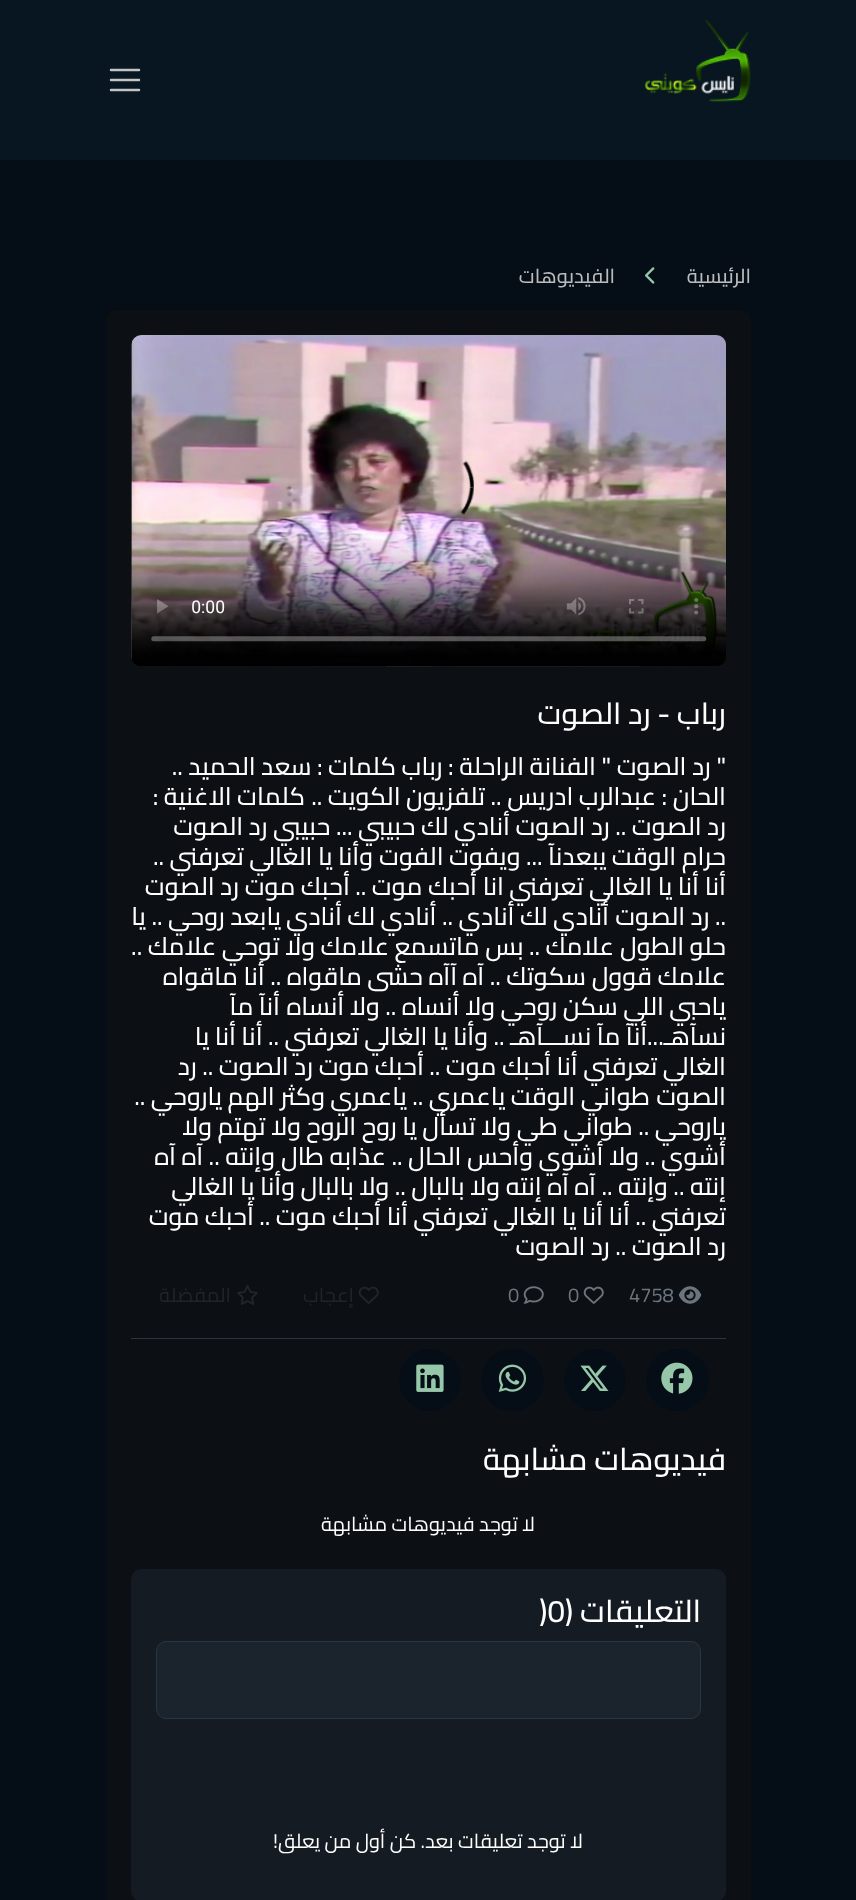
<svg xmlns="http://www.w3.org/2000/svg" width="856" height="1900">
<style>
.a{font:500 20px Cairo;direction:rtl;fill:#bbb}
.b{font:500 30px Cairo;direction:rtl;fill:#fff}
.c{font:500 25px Cairo;direction:rtl;fill:#fff}
.d{font:20px Cairo;fill:#6c757d}
.e{font:20px Cairo;direction:rtl;fill:#212529}
.f{font:500 31.25px Cairo;direction:rtl;fill:#fff}
.g{font:20px Cairo;direction:rtl;fill:#fff}
.h{font:500 31.25px Cairo;fill:#fff}
</style>
<rect width="100%" height="100%" fill="#050e17"/>
<path fill="#081622" d="M0 0h856v160H0z"/>
<image href="1.png" x="644" y="19" width="107" height="83"/>
<path fill="none" stroke="#c1c5c8" stroke-width="2.5" stroke-linecap="round" d="M111 70h28m-28 10h28m-28 10h28"/>
<image href="2.png" x="645" y="267" width="10" height="17"/>
<rect fill="#0c1015" x="106" y="310" width="645" height="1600" rx="10"/>
<rect fill="#000" x="131" y="335" width="595" height="331" rx="10"/>
<image href="3.png" x="131" y="335" width="595" height="332"/>
<path fill="#2a3544" d="M131 1338h595v1H131z"/>
<image href="4.png" x="678" y="1286" width="24" height="18"/>
<image href="5.png" x="583" y="1286" width="21" height="18"/>
<image href="6.png" x="523" y="1286" width="21" height="18"/>
<image href="7.png" x="358" y="1286" width="21" height="18"/>
<image href="8.png" x="237" y="1285" width="21" height="20"/>
<rect fill="#050e17" x="646" y="1349" width="63" height="62" rx="31"/>
<image href="9.png" x="661" y="1362" width="32" height="32"/>
<circle fill="#050e17" cx="595" cy="1380" r="31"/>
<image href="10.png" x="580" y="1365" width="29" height="26"/>
<rect fill="#050e17" x="481" y="1349" width="63" height="62" rx="31"/>
<image href="11.png" x="498" y="1364" width="29" height="28"/>
<circle fill="#050e17" cx="430" cy="1380" r="31"/>
<image href="12.png" x="416" y="1364" width="28" height="28"/>
<rect fill="#151b23" x="131" y="1569" width="595" height="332" rx="10"/>
<rect fill="#1b232d" stroke="#2a3544" x="156.5" y="1641.5" width="544" height="77" rx="9.5"/>
<text class="a" x="751" y="283">الرئيسية</text>
<text class="a" x="615" y="283">الفيديوهات</text>
<text class="b" x="726" y="724">رباب - رد الصوت</text>
<text class="c" x="726" y="775">" رد الصوت "</text>
<text class="c" x="596" y="775">الفنانة الراحلة : رباب</text>
<text class="c" x="396" y="775">كلمات : سعد الحميد ..</text>
<text class="c" x="726" y="805">الحان : عبدالرب ادريس ..</text>
<text class="c" x="485" y="805">تلفزيون الكويت ..</text>
<text class="c" x="305" y="805">كلمات الاغنية :</text>
<text class="c" x="726" y="835">رد الصوت .. رد الصوت</text>
<text class="c" x="510" y="835">أنادي لك حبيبي ... حبيبي رد الصوت</text>
<text class="c" x="726" y="865">حرام الوقت يبعدنآ ... ويفوت الفوت</text>
<text class="c" x="373" y="865">وأنا يا الغالي تعرفني ..</text>
<text class="c" x="726" y="895">أنا</text>
<text class="c" x="699" y="895">أنا يا الغالي تعرفني انا</text>
<text class="c" x="477" y="895">أحبك موت .. أحبك موت</text>
<text class="c" x="239" y="895">رد الصوت</text>
<text class="c" x="726" y="925">.. رد الصوت</text>
<text class="c" x="609" y="925">أنادي لك أنادي .. أنادي لك أنادي</text>
<text class="c" x="281" y="925">يابعد روحي .. يا</text>
<text class="c" x="726" y="955">حلو الطول</text>
<text class="c" x="614" y="955">علامك .. بس ماتسمع علامك</text>
<text class="c" x="315" y="955">ولا توحي علامك ..</text>
<text class="c" x="726" y="985">علامك قوول</text>
<text class="c" x="586" y="985">سكوتك .. آه آآه</text>
<text class="c" x="423" y="985">حشى ماقواه .. أنا ماقواه</text>
<text class="c" x="726" y="1015">ياحبي اللي سكن روحي</text>
<text class="c" x="495" y="1015">ولا أنساه .. ولا أنساه</text>
<text class="c" x="280" y="1015">أنآ مآ</text>
<text class="c" x="726" y="1045">نسآهـ...أنآ مآ نســـآهـ ..</text>
<text class="c" x="488" y="1045">وأنا يا الغالي تعرفني .. أنا</text>
<text class="c" x="236" y="1045">أنا يا</text>
<text class="c" x="726" y="1075">الغالي تعرفني أنا</text>
<text class="c" x="551" y="1075">أحبك موت .. أحبك موت</text>
<text class="c" x="313" y="1075">رد الصوت .. رد</text>
<text class="c" x="726" y="1105">الصوت</text>
<text class="c" x="650" y="1105">طواني الوقت ياعمري .. ياعمري</text>
<text class="c" x="325" y="1105">وكثر الهم ياروحي ..</text>
<text class="c" x="726" y="1135">ياروحي .. طواني طي</text>
<text class="c" x="511" y="1135">ولا تسأل يا روح الروح</text>
<text class="c" x="301" y="1135">ولا تهتم ولا</text>
<text class="c" x="726" y="1165">أشوي .. ولا أشوي</text>
<text class="c" x="533" y="1165">وأحس الحال .. عذابه طال</text>
<text class="c" x="275" y="1165">وإنته .. آه آه</text>
<text class="c" x="726" y="1195">إنته .. وإنته .. آه آه إنته</text>
<text class="c" x="500" y="1195">ولا بالبال .. ولا بالبال</text>
<text class="c" x="295" y="1195">وأنا يا الغالي</text>
<text class="c" x="726" y="1225">تعرفني .. أنا</text>
<text class="c" x="603" y="1225">أنا يا الغالي تعرفني أنا</text>
<text class="c" x="381" y="1225">أحبك موت .. أحبك موت</text>
<text class="c" x="726" y="1255">رد الصوت .. رد الصوت</text>
<text class="d" x="629" y="1302">4758</text>
<text class="d" x="568" y="1302">0</text>
<text class="d" x="508" y="1302">0</text>
<text class="e" x="354" y="1302">إعجاب</text>
<text class="e" x="231" y="1302">المفضلة</text>
<text class="f" x="726" y="1470">فيديوهات مشابهة</text>
<text class="g" x="535" y="1531">لا توجد فيديوهات مشابهة</text>
<text class="f" x="701" y="1622">التعليقات (</text>
<text class="h" x="539" y="1622">)0</text>
<text class="g" x="583" y="1848">لا توجد تعليقات بعد. كن أول من يعلق!</text>
</svg>
